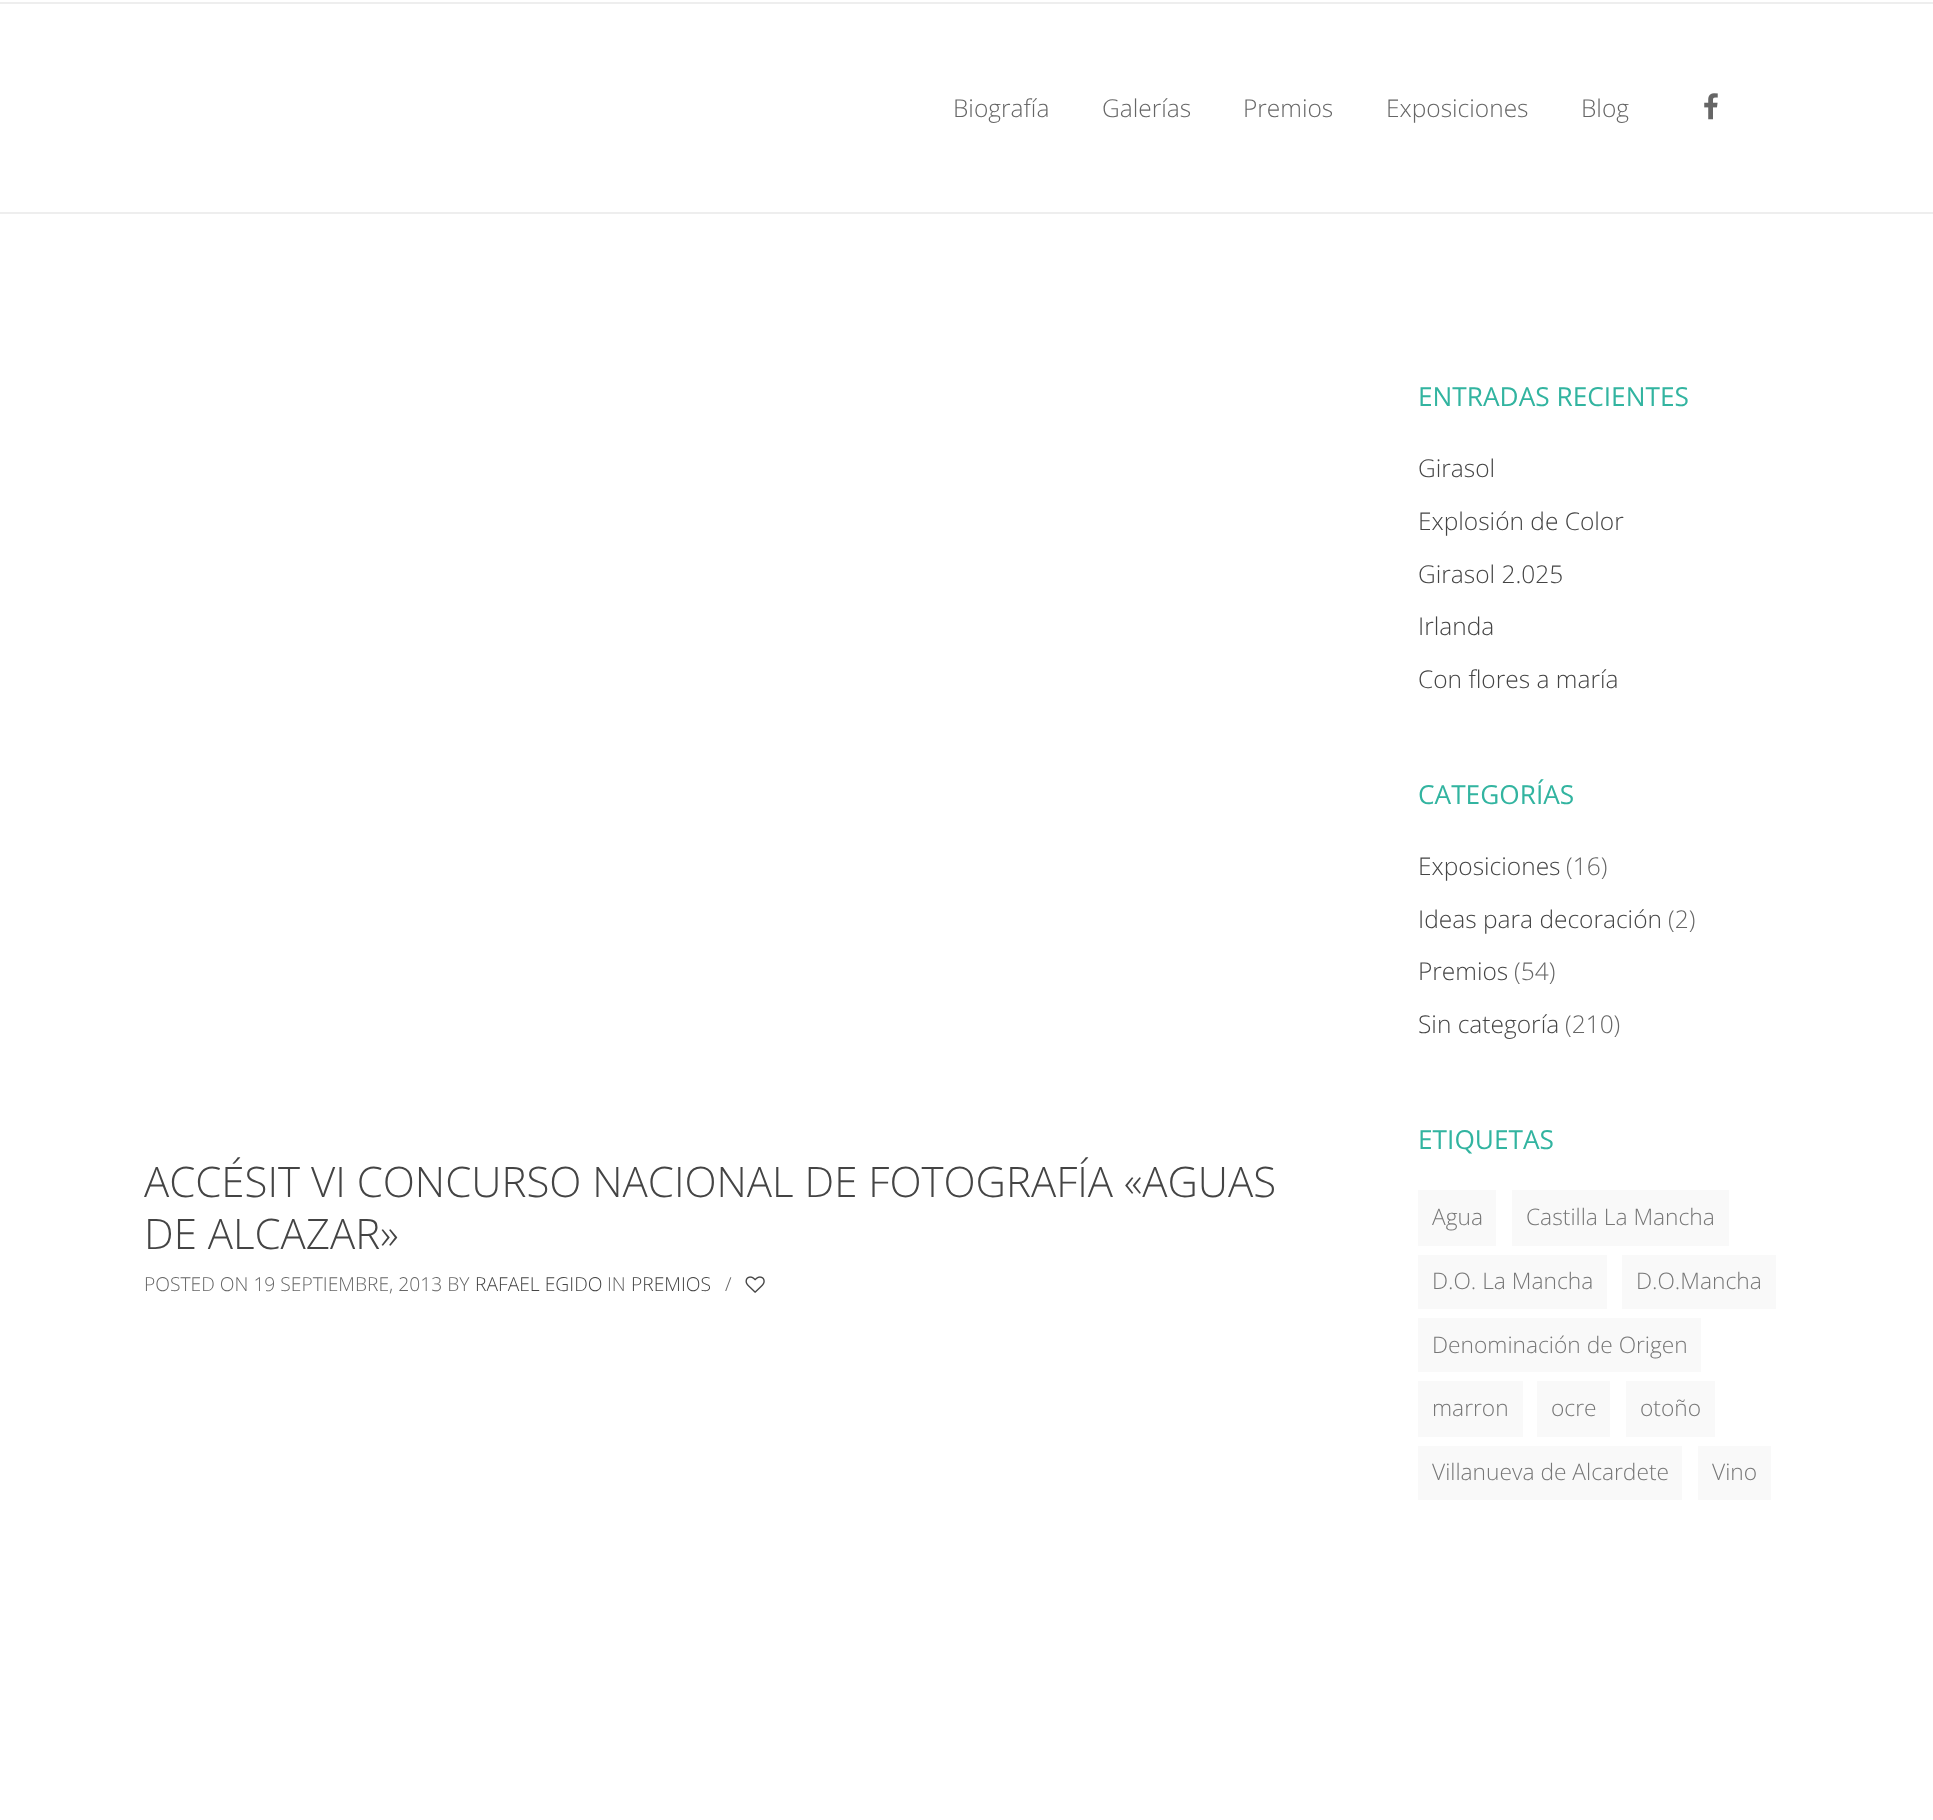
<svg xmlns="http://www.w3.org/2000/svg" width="1933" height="1820">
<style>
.a{font:300 24.5px Open Sans;fill:#666}
.b{font:300 42px Open Sans;fill:#444}
.c{font:300 19.25px Open Sans;fill:#666}
.d{font:300 19.25px Open Sans;fill:#444}
.e{font:26.25px Open Sans;fill:#32b4a0}
.f{font:300 24.5px Open Sans;fill:#444}
.g{font:300 22.75px Open Sans;fill:#777}
</style>
<rect width="100%" height="100%" fill="#fff"/>
<path fill="#eee" d="M0 2h1933v2H0z"/>
<image href="1.png" x="1704" y="93" width="14" height="27"/>
<path fill="#eee" d="M0 212h1933v2H0z"/>
<image href="2.png" x="745" y="1276" width="20" height="17"/>
<path fill="#f9f9f9" d="M1418 1190h78v56H1418z"/>
<path fill="#f9f9f9" d="M1512 1190h217v56H1512z"/>
<path fill="#f9f9f9" d="M1418 1255h189v54H1418z"/>
<path fill="#f9f9f9" d="M1622 1255h154v54H1622z"/>
<path fill="#f9f9f9" d="M1418 1318h283v54H1418z"/>
<path fill="#f9f9f9" d="M1418 1381h105v56H1418z"/>
<path fill="#f9f9f9" d="M1537 1381h73v56H1537z"/>
<path fill="#f9f9f9" d="M1626 1381h89v56H1626z"/>
<path fill="#f9f9f9" d="M1418 1446h264v54H1418z"/>
<path fill="#f9f9f9" d="M1698 1446h73v54H1698z"/>
<text class="a" x="953" y="117">Biografía</text>
<text class="a" x="1102" y="117">Galerías</text>
<text class="a" x="1243" y="117">Premios</text>
<text class="a" x="1386" y="117">Exposiciones</text>
<text class="a" x="1581" y="117">Blog</text>
<text class="b" x="144" y="1197">ACCÉSIT VI CONCURSO NACIONAL DE FOTOGRAFÍA «AGUAS</text>
<text class="b" x="144" y="1249">DE ALCAZAR»</text>
<text class="c" x="144" y="1291">POSTED ON 19 SEPTIEMBRE, 2013 BY</text>
<text class="d" x="475" y="1291">RAFAEL EGIDO</text>
<text class="c" x="607" y="1291">IN</text>
<text class="d" x="631" y="1291">PREMIOS</text>
<text class="c" x="725" y="1291">/</text>
<text class="e" x="1418" y="406">ENTRADAS RECIENTES</text>
<text class="f" x="1418" y="477">Girasol</text>
<text class="f" x="1418" y="530">Explosión de Color</text>
<text class="f" x="1418" y="583">Girasol 2.025</text>
<text class="f" x="1418" y="635">Irlanda</text>
<text class="f" x="1418" y="688">Con flores a maría</text>
<text class="e" x="1418" y="804">CATEGORÍAS</text>
<text class="f" x="1418" y="875">Exposiciones</text>
<text class="a" x="1566" y="875">(16)</text>
<text class="f" x="1418" y="928">Ideas para decoración</text>
<text class="a" x="1668" y="928">(2)</text>
<text class="f" x="1418" y="980">Premios</text>
<text class="a" x="1514" y="980">(54)</text>
<text class="f" x="1418" y="1033">Sin categoría</text>
<text class="a" x="1565" y="1033">(210)</text>
<text class="e" x="1418" y="1149">ETIQUETAS</text>
<text class="g" x="1432" y="1225">Agua</text>
<text class="g" x="1526" y="1225">Castilla La Mancha</text>
<text class="g" x="1432" y="1289">D.O. La Mancha</text>
<text class="g" x="1636" y="1289">D.O.Mancha</text>
<text class="g" x="1432" y="1353">Denominación de Origen</text>
<text class="g" x="1432" y="1416">marron</text>
<text class="g" x="1551" y="1416">ocre</text>
<text class="g" x="1640" y="1416">otoño</text>
<text class="g" x="1432" y="1480">Villanueva de Alcardete</text>
<text class="g" x="1712" y="1480">Vino</text>
</svg>
